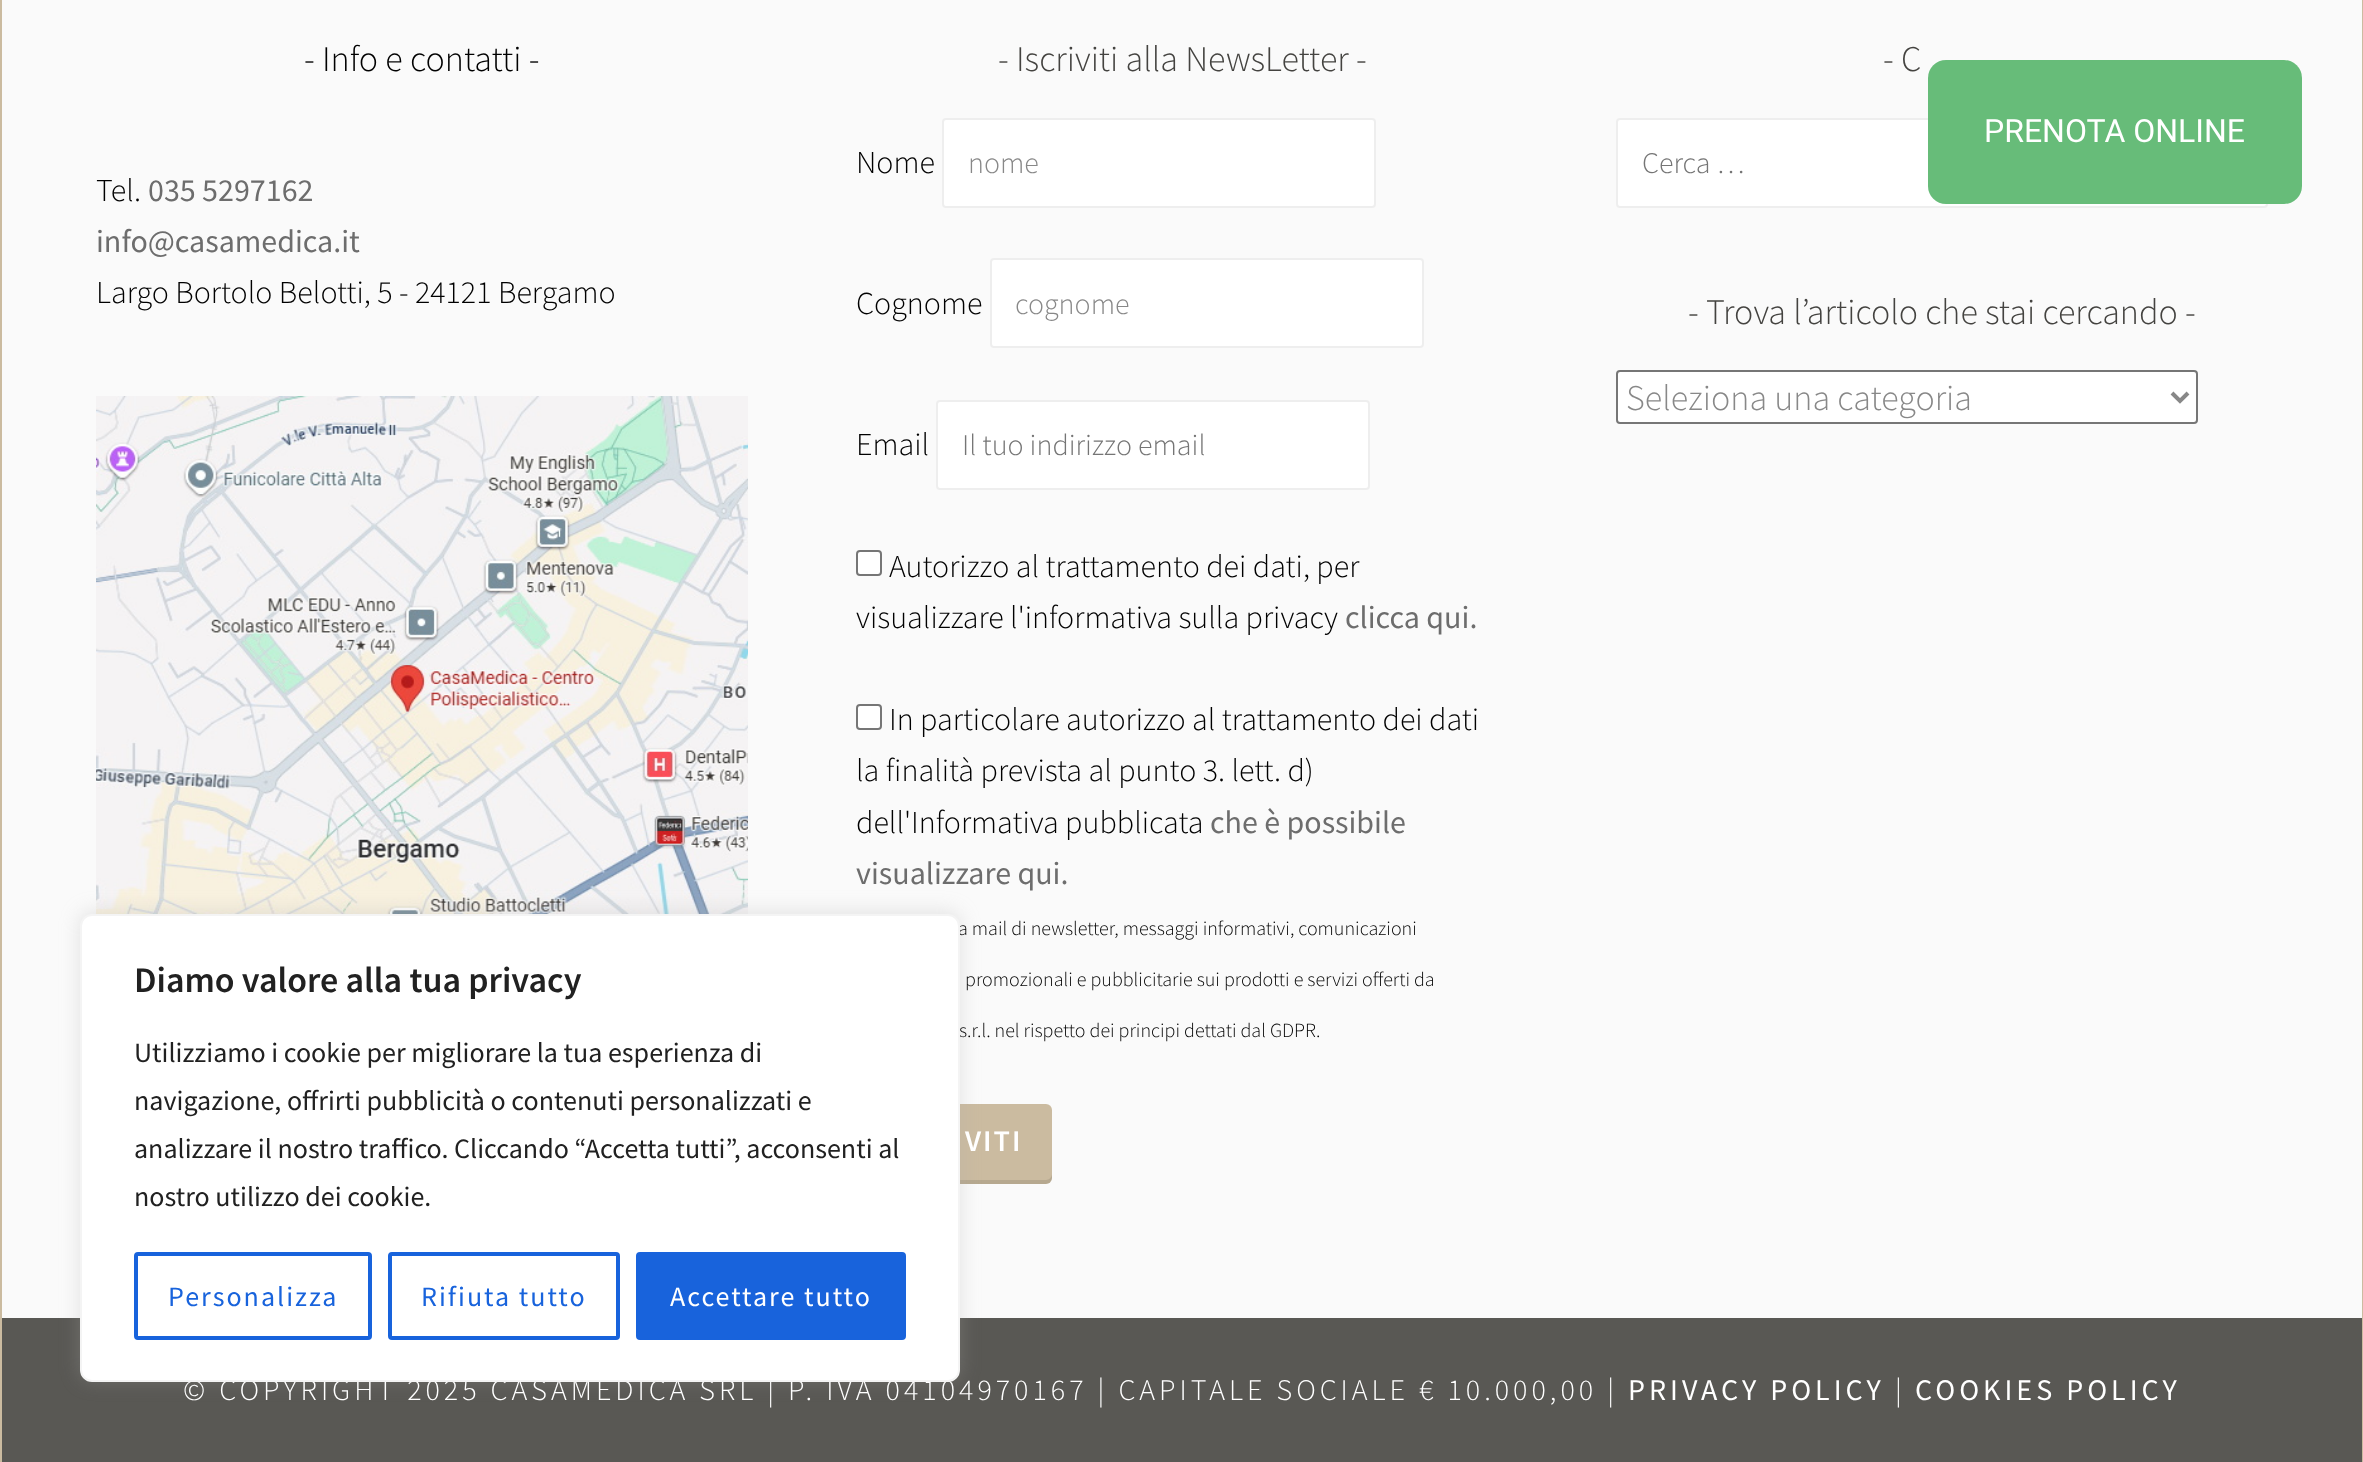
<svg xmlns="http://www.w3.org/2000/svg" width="2363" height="1462">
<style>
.a{font:300 36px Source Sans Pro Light;fill:#000}
.b{font:300 32px Source Sans Pro Light;fill:#000}
.c{font:32px Source Sans Pro;fill:#6d6d6d}
.d{font:300 36px Source Sans Pro Light;fill:#444340}
.e{font:300 30px Source Sans Pro Light;fill:#888}
.f{font:300 30px Source Sans Pro Light;fill:#757575}
.g{font:300 20px Source Sans Pro Light;fill:#000}
.h{font:600 30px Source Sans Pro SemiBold;letter-spacing:2px;fill:#fff}
.i{font:300 36px Source Sans Pro Light;fill:#888}
.j{font:32px Roboto;fill:#fff}
.k{font:300 30px Source Sans Pro Light;letter-spacing:4px;fill:#fff}
.l{font:30px Source Sans Pro;letter-spacing:4px;fill:#fff}
.m{font:600 36px Source Sans Pro SemiBold;fill:#212121}
.n{font:28px Source Sans Pro;fill:#212121}
.o{font:28px Source Sans Pro;letter-spacing:2px;fill:#1863dc}
.p{font:28px Source Sans Pro;letter-spacing:2px;fill:#fff}
</style>
<rect width="100%" height="100%" fill="#cbbba0"/>
<path fill="#fafafa" d="M2 0h2360v1318H2z"/>
<image href="1.png" x="96" y="396" width="652" height="518"/>
<rect fill="#fff" stroke="#eee" stroke-width="2" x="943" y="119" width="432" height="88" rx="3"/>
<rect fill="#fff" stroke="#eee" stroke-width="2" x="991" y="259" width="432" height="88" rx="3"/>
<rect fill="#fff" stroke="#eee" stroke-width="2" x="937" y="401" width="432" height="88" rx="3"/>
<rect fill="#fff" stroke="#767676" stroke-width="2" x="857" y="551" width="24" height="24" rx="3"/>
<rect fill="#fff" stroke="#767676" stroke-width="2" x="857" y="705" width="24" height="24" rx="3"/>
<rect fill="#cbbba0" x="856" y="1104" width="196" height="80" rx="6"/>
<path fill="#0000001a" d="M856 1174v4c0 3 3 6 6 6h184c3 0 6-3 6-6v-4c0 3-3 6-6 6h-184c-3 0-6-3-6-6z"/>
<rect fill="#fff" stroke="#eee" stroke-width="2" x="1617" y="119" width="650" height="88" rx="3"/>
<rect fill="#fff" stroke="#767676" stroke-width="2" x="1617" y="371" width="580" height="52" rx="3"/>
<path fill="none" stroke="#888" stroke-width="4" d="M2172 393l8 8l8-8"/>
<rect fill="#67bc79" x="1928" y="60" width="374" height="144" rx="18"/>
<path fill="#595854" d="M2 1318h2360v144H2z"/>
<rect fill="#acabab4d" filter="blur(10px)" x="80" y="912" width="880" height="468" rx="12"/>
<text class="a" x="304" y="71">- Info e contatti -</text>
<text class="b" x="96" y="201">Tel.</text>
<text class="c" x="148" y="201">035 5297162</text>
<text class="c" x="96" y="252">info@casamedica.it</text>
<text class="b" x="96" y="303">Largo Bortolo Belotti, 5 - 24121 Bergamo</text>
<text class="d" x="998" y="71">- Iscriviti alla NewsLetter -</text>
<text class="b" x="856" y="173">Nome</text>
<text class="e" x="968" y="173">nome</text>
<text class="b" x="856" y="314">Cognome</text>
<text class="e" x="1015" y="314">cognome</text>
<text class="b" x="856" y="455">Email</text>
<text class="f" x="962" y="455">Il tuo indirizzo email</text>
<text class="b" x="889" y="577">Autorizzo al trattamento dei dati, per</text>
<text class="b" x="856" y="628">visualizzare l'informativa sulla privacy</text>
<text class="c" x="1345" y="628">clicca qui.</text>
<text class="b" x="889" y="730">In particolare autorizzo al trattamento dei dati</text>
<text class="b" x="856" y="781">la finalità prevista al punto 3. lett. d)</text>
<text class="b" x="856" y="833">dell'Informativa pubblicata</text>
<text class="c" x="1210" y="833">che è possibile</text>
<text class="c" x="856" y="884">visualizzare qui.</text>
<text class="g" x="958" y="935">a mail di newsletter, messaggi informativi, comunicazioni</text>
<text class="g" x="965" y="986">promozionali e pubblicitarie sui prodotti e servizi offerti da</text>
<text class="g" x="959" y="1037">s.r.l. nel rispetto dei principi dettati dal GDPR.</text>
<text class="h" x="965" y="1151">VITI</text>
<text class="d" x="1883" y="71">- C</text>
<text class="f" x="1642" y="173">Cerca …</text>
<text class="d" x="1688" y="324">- Trova l’articolo che stai cercando -</text>
<text class="i" x="1626" y="410">Seleziona una categoria</text>
<text class="j" x="1984" y="142">PRENOTA ONLINE</text>
<text class="k" x="183" y="1400">© COPYRIGHT 2025 CASAMEDICA SRL | P. IVA 04104970167 | CAPITALE SOCIALE € 10.000,00 |</text>
<text class="l" x="1628" y="1400">PRIVACY POLICY</text>
<text class="k" x="1895" y="1400">|</text>
<text class="l" x="1915" y="1400">COOKIES POLICY</text>
<rect fill="#fff" stroke="#f4f4f4" stroke-width="2" x="81" y="915" width="878" height="466" rx="11"/>
<text class="m" x="134" y="992">Diamo valore alla tua privacy</text>
<text class="n" x="134" y="1062">Utilizziamo i cookie per migliorare la tua esperienza di</text>
<text class="n" x="134" y="1110">navigazione, offrirti pubblicità o contenuti personalizzati e</text>
<text class="n" x="134" y="1158">analizzare il nostro traffico. Cliccando “Accetta tutti”, acconsenti al</text>
<text class="n" x="134" y="1206">nostro utilizzo dei cookie.</text>
<rect fill="none" stroke="#1863dc" stroke-width="4" x="136" y="1254" width="234" height="84" rx="2"/>
<text class="o" x="168" y="1306">Personalizza</text>
<rect fill="none" stroke="#1863dc" stroke-width="4" x="390" y="1254" width="228" height="84" rx="2"/>
<text class="o" x="421" y="1306">Rifiuta tutto</text>
<rect fill="#1863dc" stroke="#1863dc" stroke-width="4" x="638" y="1254" width="266" height="84" rx="2"/>
<text class="p" x="670" y="1306">Accettare tutto</text>
</svg>
